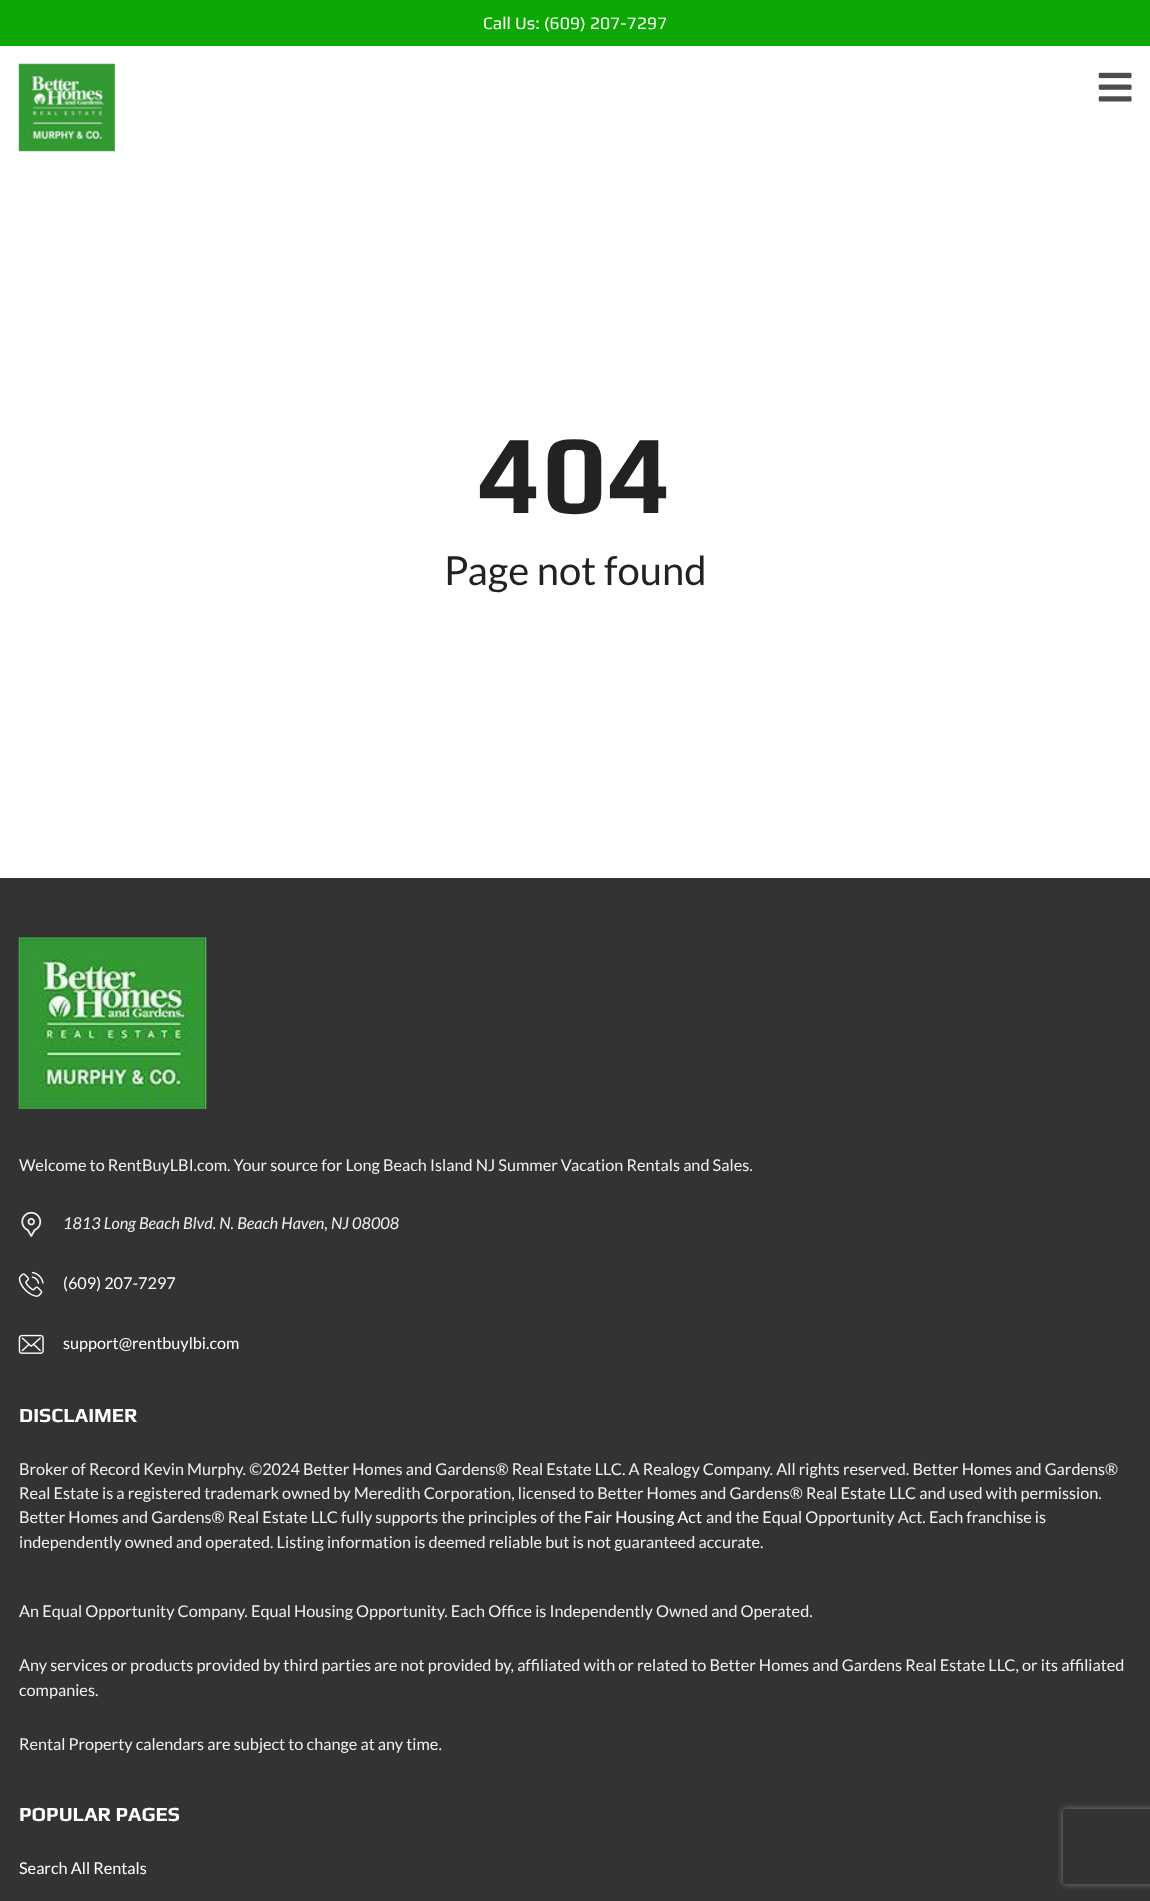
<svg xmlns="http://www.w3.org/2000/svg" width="1150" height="1901">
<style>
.a{font:17.5px Play;fill:#fff}
.b{font:bold 112px Play;fill:#222}
.c{font:40px Lato;fill:#222}
.d{font:16.25px Lato;fill:#f0f0f0}
.e{font:italic 16.25px Lato;fill:#f0f0f0}
.f{font:16.25px Lato;fill:#fff}
.g{font:bold 20px Play;fill:#fff}
</style>
<defs>
<clipPath id="clip1"><path d="M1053 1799h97v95h-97zm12.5 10h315c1.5 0 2.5 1 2.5 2.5v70c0 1.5-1 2.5-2.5 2.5h-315c-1.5 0-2.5-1-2.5-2.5v-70c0-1.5 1-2.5 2.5-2.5z" clip-rule="evenodd"/></clipPath>
</defs>
<rect width="100%" height="100%" fill="#fff"/>
<path fill="#0ea804" d="M0 0h1150v46H0z"/>
<image href="1.png" x="18" y="63" width="97" height="89"/>
<image href="2.png" x="1098" y="72" width="34" height="30"/>
<path fill="#333" d="M0 878h1150v1023H0z"/>
<image href="3.png" x="18" y="937" width="189" height="172"/>
<image href="4.png" x="21" y="1211" width="21" height="26"/>
<image href="5.png" x="18" y="1271" width="26" height="26"/>
<image href="6.png" x="18" y="1334" width="26" height="20"/>
<g clip-path="url(#clip1)">
<rect fill="#808080" filter="blur(3px)" x="1063" y="1809" width="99" height="75" rx="2.5"/>
</g>
<text class="a" x="483" y="29">Call Us: (609) 207-7297</text>
<text class="b" x="477" y="513">404</text>
<text class="c" x="444" y="585">Page not found</text>
<text class="d" x="19" y="1171">Welcome to RentBuyLBI.com. Your source for Long Beach Island NJ Summer Vacation Rentals and Sales.</text>
<text class="e" x="63" y="1229">1813 Long Beach Blvd. N. Beach Haven, NJ 08008</text>
<text class="f" x="63" y="1289">(609) 207-7297</text>
<text class="f" x="63" y="1349">support@rentbuylbi.com</text>
<text class="g" x="19" y="1422">DISCLAIMER</text>
<text class="d" x="19" y="1475">Broker of Record Kevin Murphy. ©2024 Better Homes and Gardens® Real Estate LLC. A Realogy Company. All rights reserved. Better Homes and Gardens®</text>
<text class="d" x="19" y="1499">Real Estate is a registered trademark owned by Meredith Corporation, licensed to Better Homes and Gardens® Real Estate LLC and used with permission.</text>
<text class="d" x="19" y="1523">Better Homes and Gardens® Real Estate LLC fully supports the principles of the</text>
<text class="f" x="584" y="1523">Fair Housing Act</text>
<text class="d" x="706" y="1523">and the Equal Opportunity Act. Each franchise is</text>
<text class="d" x="19" y="1548">independently owned and operated. Listing information is deemed reliable but is not guaranteed accurate.</text>
<text class="d" x="19" y="1617">An Equal Opportunity Company. Equal Housing Opportunity. Each Office is Independently Owned and Operated.</text>
<text class="d" x="19" y="1671">Any services or products provided by third parties are not provided by, affiliated with or related to Better Homes and Gardens Real Estate LLC, or its affiliated</text>
<text class="d" x="19" y="1696">companies.</text>
<text class="d" x="19" y="1750">Rental Property calendars are subject to change at any time.</text>
<text class="g" x="19" y="1821">POPULAR PAGES</text>
<text class="f" x="19" y="1874">Search All Rentals</text>
</svg>
